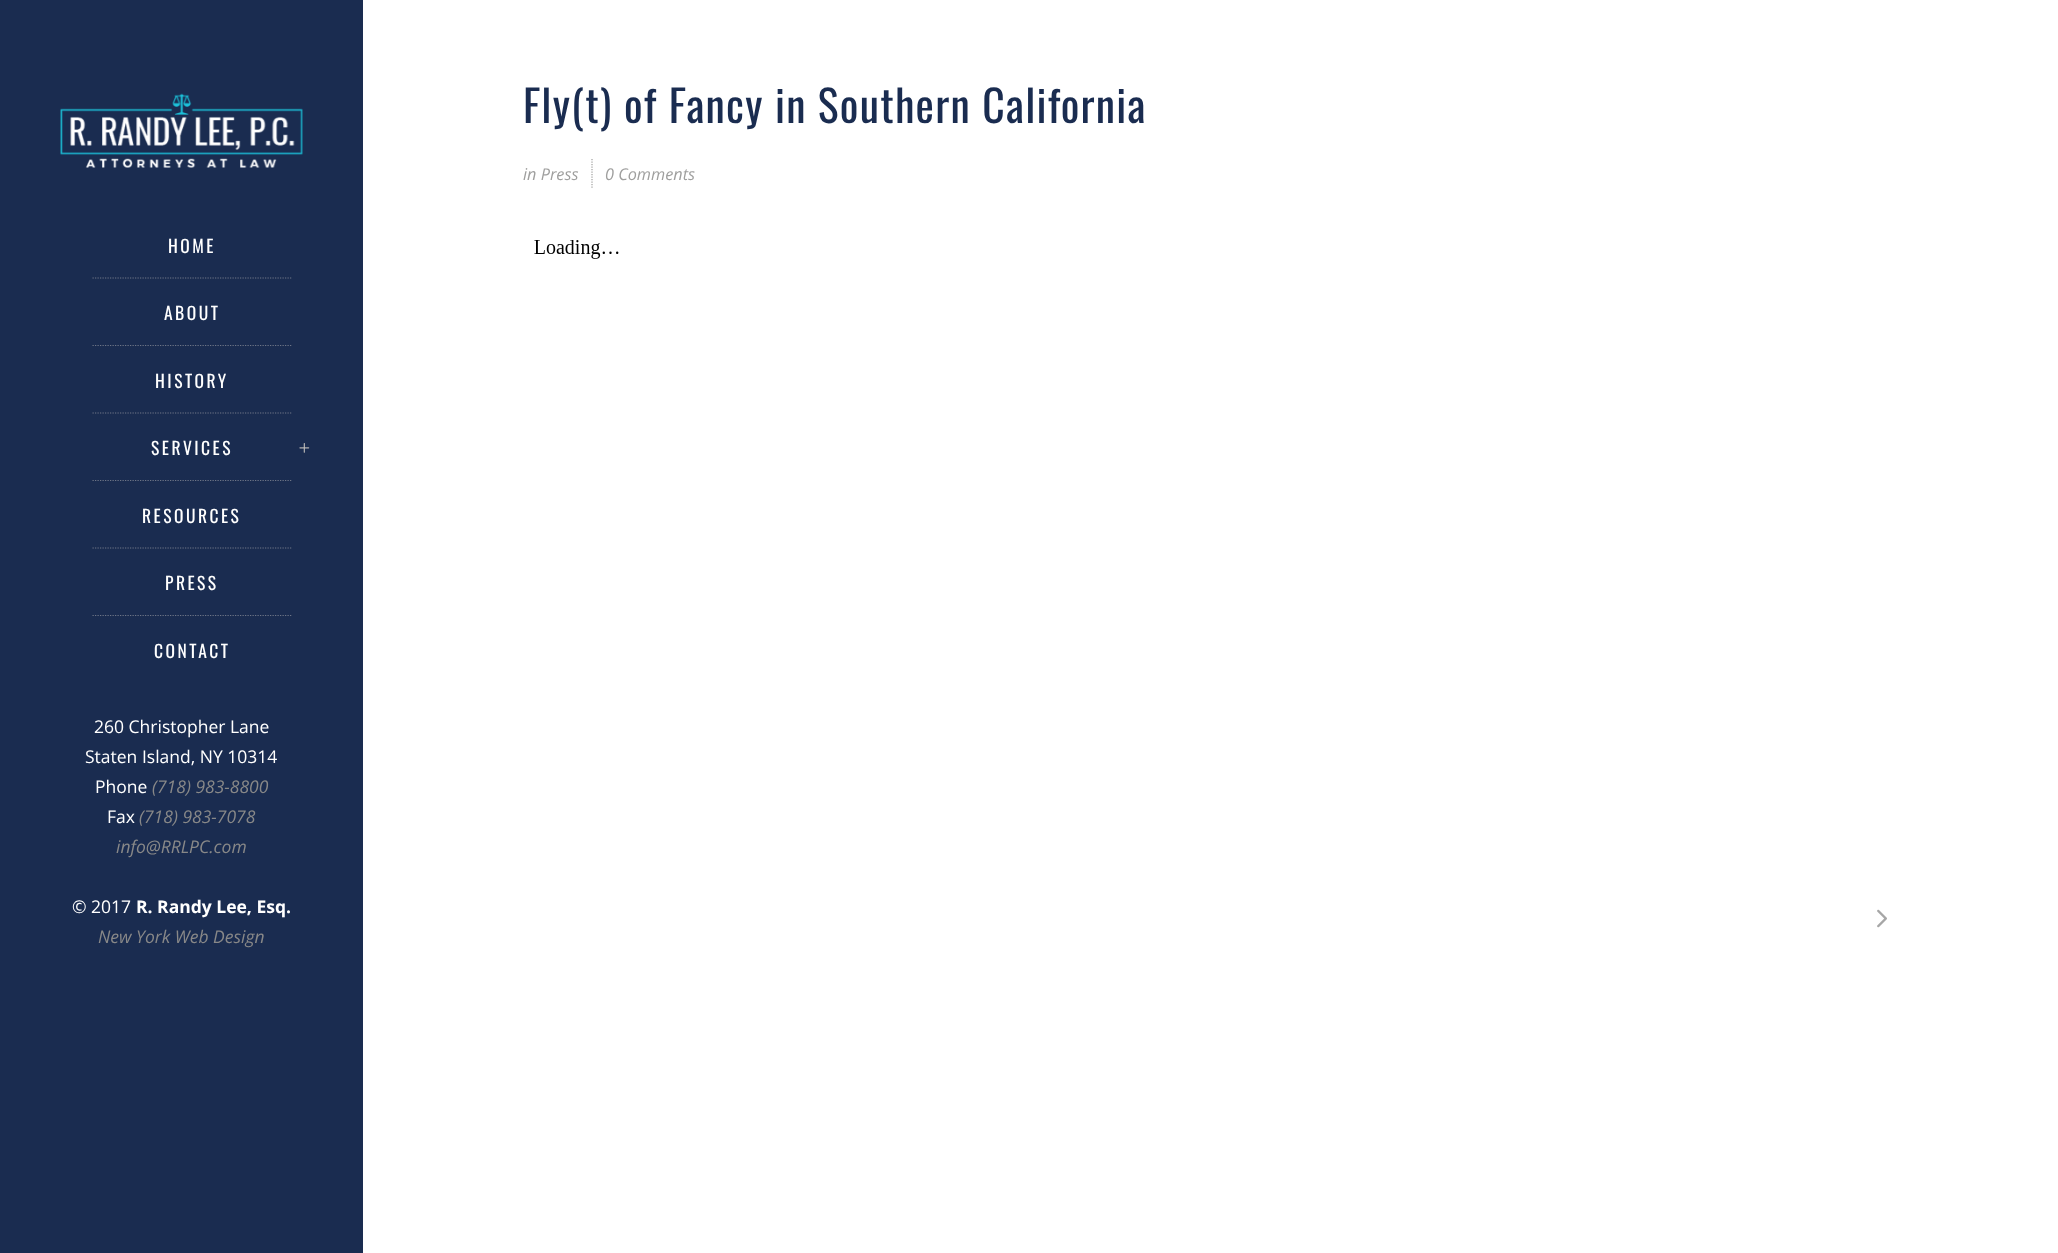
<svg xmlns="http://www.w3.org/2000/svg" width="2058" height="1253">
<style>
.a{font:43.75px Oswald;letter-spacing:1.25px;fill:#1a2c50}
.b{font:italic 16.25px Open Sans;fill:#9f9f9e}
.c{font:17.5px Oswald;letter-spacing:2.5px;fill:#fff}
.d{font:17.5px Open Sans;fill:#fff}
.e{font:italic 17.5px Open Sans;fill:#888}
.f{font:bold 17.5px Open Sans;fill:#fff}
</style>
<rect width="100%" height="100%" fill="#fff"/>
<path fill="none" stroke="#9f9f9e" stroke-width="1.2" stroke-dasharray="1.25 1.25" d="M592 159v30"/>
<image href="1.png" x="534" y="240" width="85" height="19"/>
<image href="2.png" x="1877" y="909" width="10" height="19"/>
<path fill="#1a2c50" d="M0 0h363v1253H0z"/>
<image href="3.png" x="60" y="93" width="243" height="75"/>
<path fill="none" stroke="#6f7686" stroke-width="1.2" stroke-dasharray="1.25 1.25" d="M92.5 278h200"/>
<path fill="none" stroke="#6f7686" stroke-width="1.2" stroke-dasharray="1.25 1.25" d="M92.5 345.5h200"/>
<path fill="none" stroke="#6f7686" stroke-width="1.2" stroke-dasharray="1.25 1.25" d="M92.5 413h200"/>
<image href="4.png" x="299" y="443" width="11" height="10"/>
<path fill="none" stroke="#6f7686" stroke-width="1.2" stroke-dasharray="1.25 1.25" d="M92.5 480.5h200"/>
<path fill="none" stroke="#6f7686" stroke-width="1.2" stroke-dasharray="1.25 1.25" d="M92.5 548h200"/>
<path fill="none" stroke="#6f7686" stroke-width="1.2" stroke-dasharray="1.25 1.25" d="M92.5 615.5h200"/>
<text class="a" x="523" y="123">Fly(t) of Fancy in Southern California</text>
<text class="b" x="523" y="180">in Press</text>
<text class="b" x="605" y="180">0 Comments</text>
<text class="c" x="168" y="253">HOME</text>
<text class="c" x="164" y="320">ABOUT</text>
<text class="c" x="155" y="388">HISTORY</text>
<text class="c" x="151" y="455">SERVICES</text>
<text class="c" x="142" y="523">RESOURCES</text>
<text class="c" x="165" y="590">PRESS</text>
<text class="c" x="154" y="658">CONTACT</text>
<text class="d" x="94" y="733">260 Christopher Lane</text>
<text class="d" x="85" y="763">Staten Island, NY 10314</text>
<text class="d" x="95" y="793">Phone</text>
<text class="e" x="152" y="793">(718) 983-8800</text>
<text class="d" x="107" y="823">Fax</text>
<text class="e" x="139" y="823">(718) 983-7078</text>
<text class="e" x="116" y="853">info@RRLPC.com</text>
<text class="d" x="72" y="913">© 2017</text>
<text class="f" x="136" y="913">R. Randy Lee, Esq.</text>
<text class="e" x="98" y="943">New York Web Design</text>
</svg>
